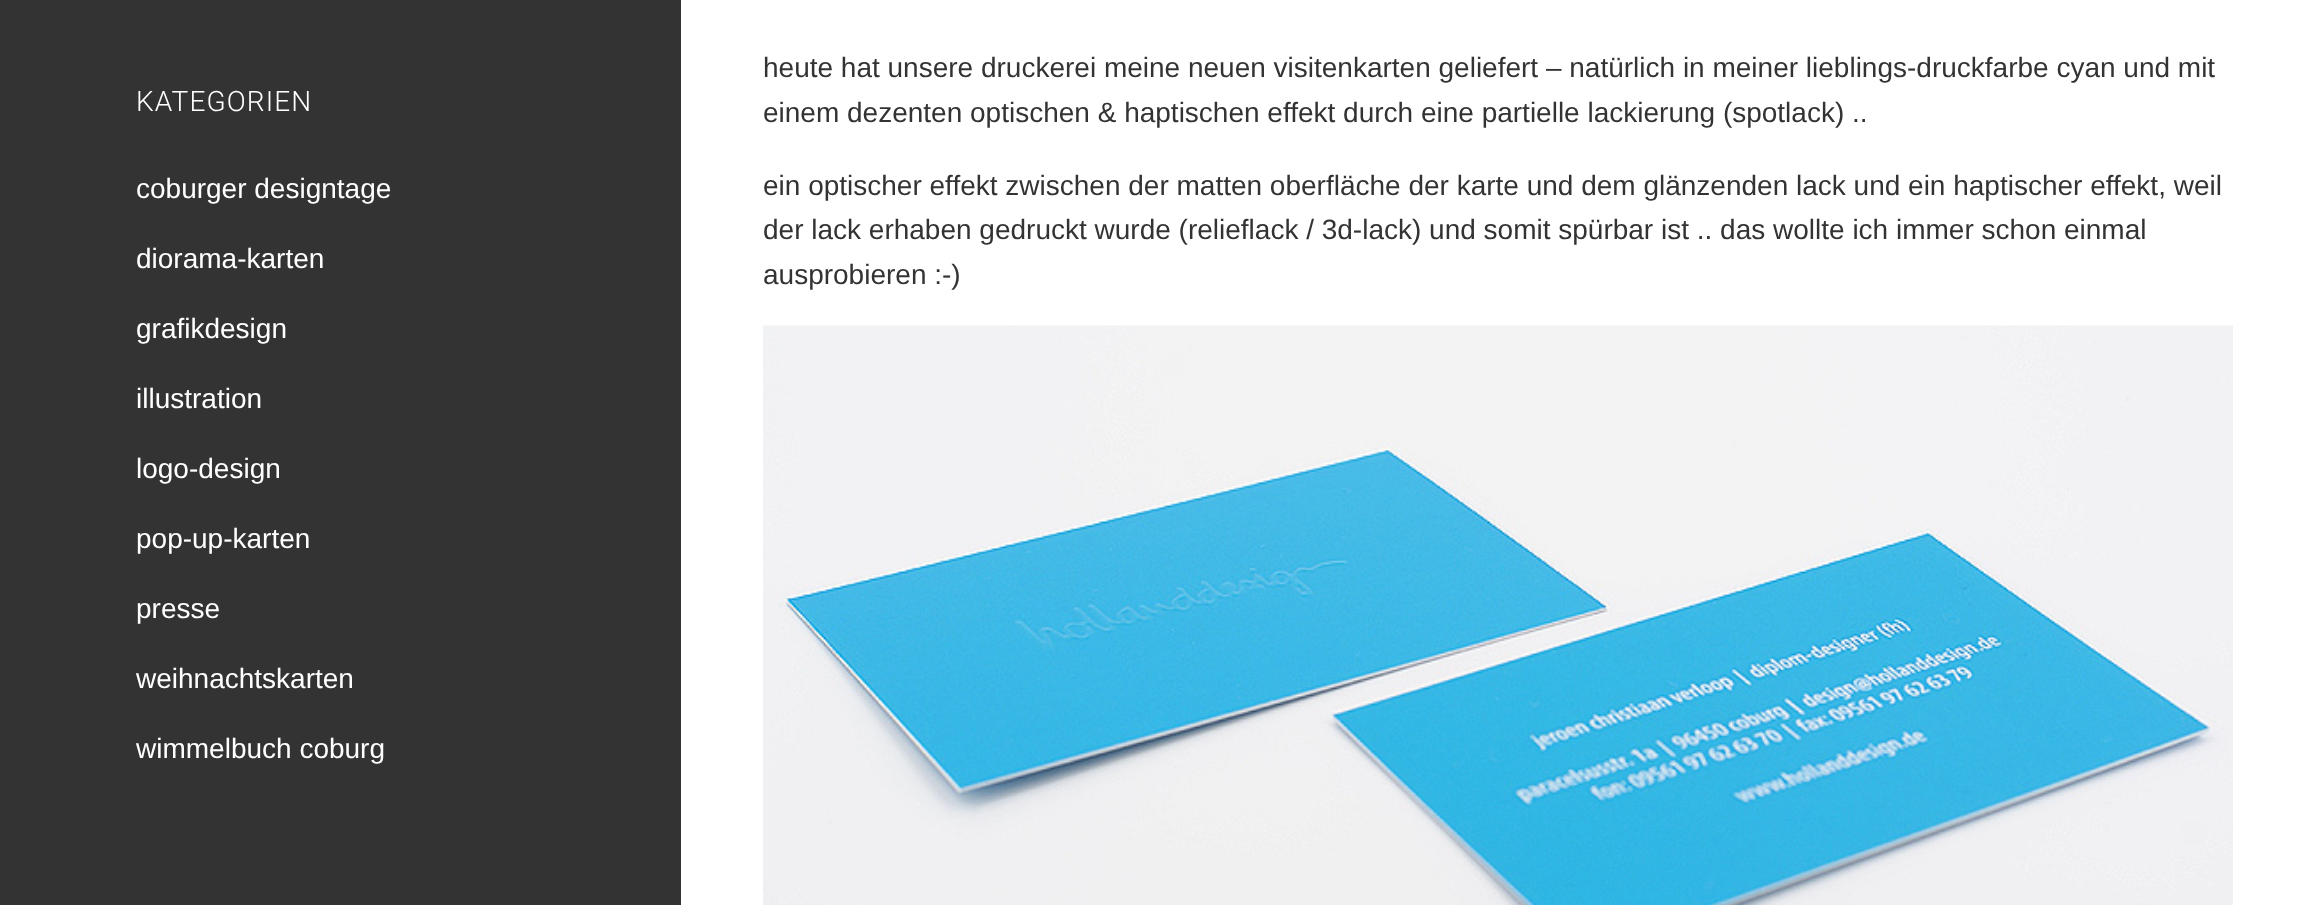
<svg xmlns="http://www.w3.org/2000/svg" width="2315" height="905">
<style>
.a{font:300 28px Roboto;letter-spacing:1.1px;fill:#fff}
.b{font:28px Liberation Sans;fill:#fff}
.c{font:28px Liberation Sans;fill:#333}
</style>
<rect width="100%" height="100%" fill="#333"/>
<path fill="#fff" d="M681 0h1634v905H681z"/>
<image href="1.png" x="763" y="325" width="1470" height="580"/>
<text class="a" x="136" y="111">KATEGORIEN</text>
<text class="b" x="136" y="198">coburger designtage</text>
<text class="b" x="136" y="268">diorama-karten</text>
<text class="b" x="136" y="338">grafikdesign</text>
<text class="b" x="136" y="408">illustration</text>
<text class="b" x="136" y="478">logo-design</text>
<text class="b" x="136" y="548">pop-up-karten</text>
<text class="b" x="136" y="618">presse</text>
<text class="b" x="136" y="688">weihnachtskarten</text>
<text class="b" x="136" y="758">wimmelbuch coburg</text>
<text class="c" x="763" y="77">heute hat unsere druckerei meine neuen visitenkarten geliefert – natürlich in meiner lieblings-druckfarbe cyan und mit</text>
<text class="c" x="763" y="122">einem dezenten optischen &amp; haptischen effekt durch eine partielle lackierung (spotlack) ..</text>
<text class="c" x="763" y="195">ein optischer effekt zwischen der matten oberfläche der karte und dem glänzenden lack und ein haptischer effekt, weil</text>
<text class="c" x="763" y="239">der lack erhaben gedruckt wurde (relieflack / 3d-lack) und somit spürbar ist .. das wollte ich immer schon einmal</text>
<text class="c" x="763" y="284">ausprobieren :-)</text>
</svg>
